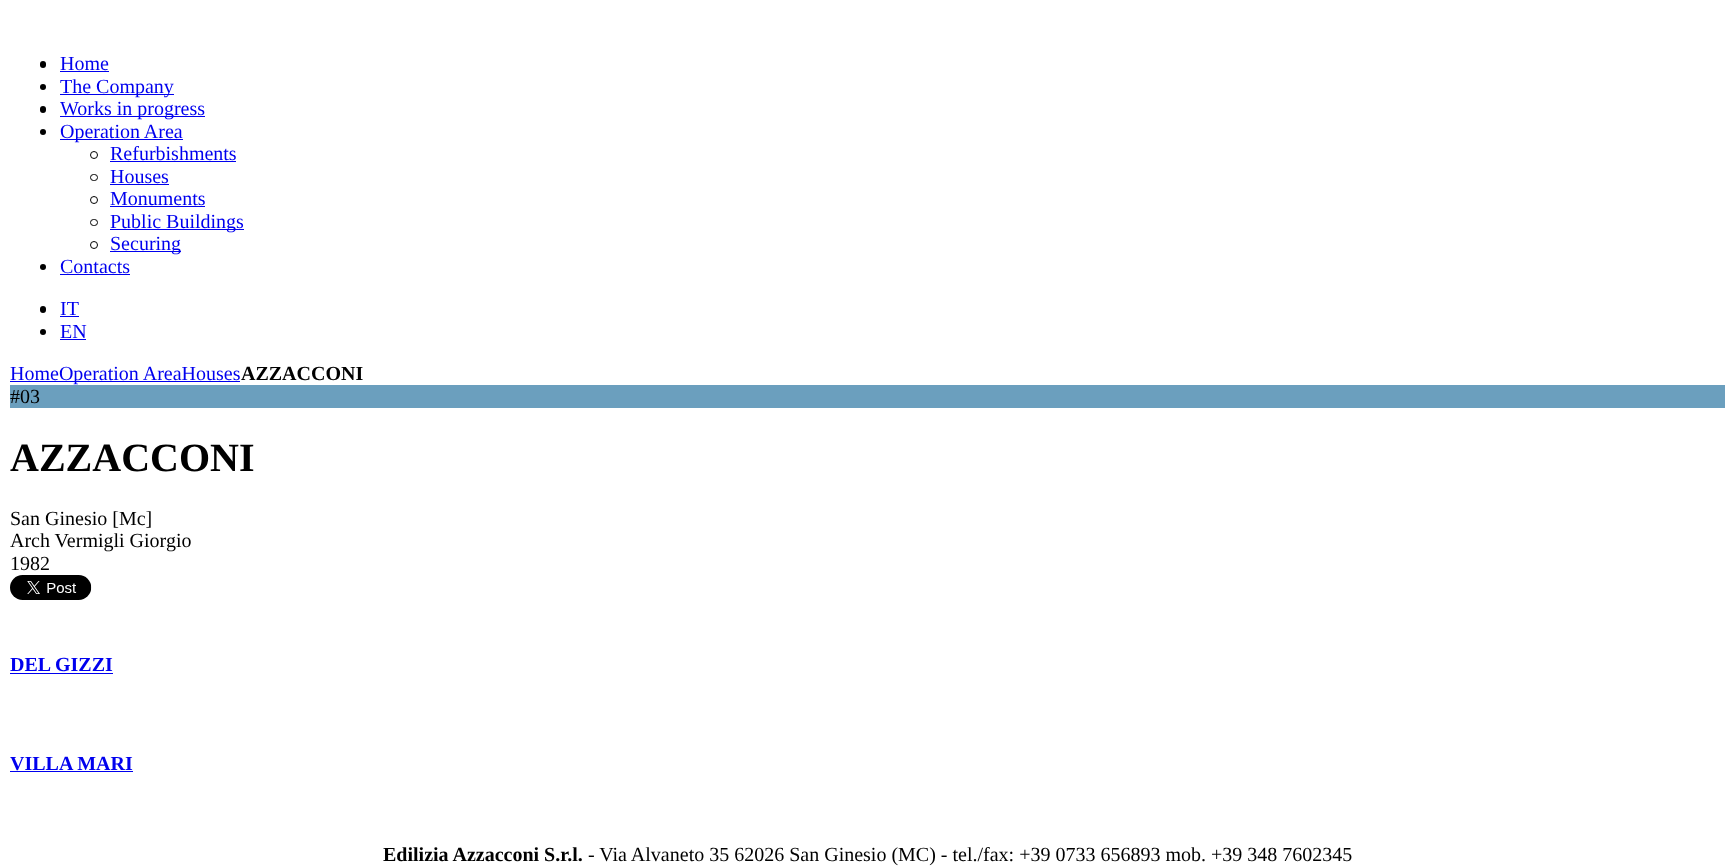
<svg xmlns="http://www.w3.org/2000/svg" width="1734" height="868">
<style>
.a{font:20px Liberation Serif;fill:#00e}
.b{font:bold 20px Liberation Serif;fill:#000}
.c{font:20px Liberation Serif;fill:#000}
.d{font:bold 40px Liberation Serif;fill:#000}
.e{font:bold 20px Liberation Serif;fill:#00e}
</style>
<rect width="100%" height="100%" fill="#fff"/>
<rect fill="#000" x="40" y="61" width="6" height="7" rx="3"/>
<path fill="#00e" d="M60 71h49v1H60z"/>
<circle fill="#000" cx="43" cy="87" r="3"/>
<path fill="#00e" d="M60 94h114v1H60z"/>
<rect fill="#000" x="40" y="106" width="6" height="7" rx="3"/>
<path fill="#00e" d="M60 116h145v1H60z"/>
<circle fill="#000" cx="43" cy="132" r="3"/>
<path fill="#00e" d="M60 139h123v1H60z"/>
<circle fill="none" stroke="#000" cx="94" cy="155" r="3.5"/>
<path fill="#00e" d="M110 161h126v1H110z"/>
<rect fill="none" stroke="#000" x="90.5" y="174.5" width="7" height="6" rx="3"/>
<path fill="#00e" d="M110 184h59v1H110z"/>
<circle fill="none" stroke="#000" cx="94" cy="200" r="3.5"/>
<path fill="#00e" d="M110 206h95v1H110z"/>
<rect fill="none" stroke="#000" x="90.5" y="219.5" width="7" height="6" rx="3"/>
<path fill="#00e" d="M110 229h134v1H110z"/>
<circle fill="none" stroke="#000" cx="94" cy="245" r="3.5"/>
<path fill="#00e" d="M110 251h71v1H110z"/>
<circle fill="#000" cx="43" cy="267" r="3"/>
<path fill="#00e" d="M60 274h70v1H60z"/>
<rect fill="#000" x="40" y="306" width="6" height="7" rx="3"/>
<path fill="#00e" d="M60 316h19v1H60z"/>
<circle fill="#000" cx="43" cy="332" r="3"/>
<path fill="#00e" d="M60 339h26v1H60z"/>
<path fill="#00e" d="M10 381h171v1H10z"/>
<path fill="#00e" d="M181 381h59v1H181z"/>
<path fill="#6b9fbe" d="M10 385h1715v23H10z"/>
<image href="1.png" x="10" y="575" width="82" height="25"/>
<path fill="#00e" d="M10 673h103v1H10z"/>
<path fill="#00e" d="M10 771h123v1H10z"/>
<text class="a" x="60" y="70">Home</text>
<text class="a" x="60" y="93">The Company</text>
<text class="a" x="60" y="115">Works in progress</text>
<text class="a" x="60" y="138">Operation Area</text>
<text class="a" x="110" y="160">Refurbishments</text>
<text class="a" x="110" y="183">Houses</text>
<text class="a" x="110" y="205">Monuments</text>
<text class="a" x="110" y="228">Public Buildings</text>
<text class="a" x="110" y="250">Securing</text>
<text class="a" x="60" y="273">Contacts</text>
<text class="a" x="60" y="315">IT</text>
<text class="a" x="60" y="338">EN</text>
<text class="a" x="10" y="380">HomeOperation AreaHouses</text>
<text class="b" x="241" y="380">AZZACCONI</text>
<text class="c" x="10" y="403">#03</text>
<text class="d" x="10" y="471">AZZACCONI</text>
<text class="c" x="10" y="525">San Ginesio [Mc]</text>
<text class="c" x="10" y="547">Arch Vermigli Giorgio</text>
<text class="c" x="10" y="570">1982</text>
<text class="e" x="10" y="671">DEL GIZZI</text>
<text class="e" x="10" y="770">VILLA MARI</text>
<text class="b" x="383" y="861">Edilizia Azzacconi S.r.l.</text>
<text class="c" x="588" y="861">- Via Alvaneto 35 62026 San Ginesio (MC) - tel./fax: +39 0733 656893 mob. +39 348 7602345</text>
</svg>
